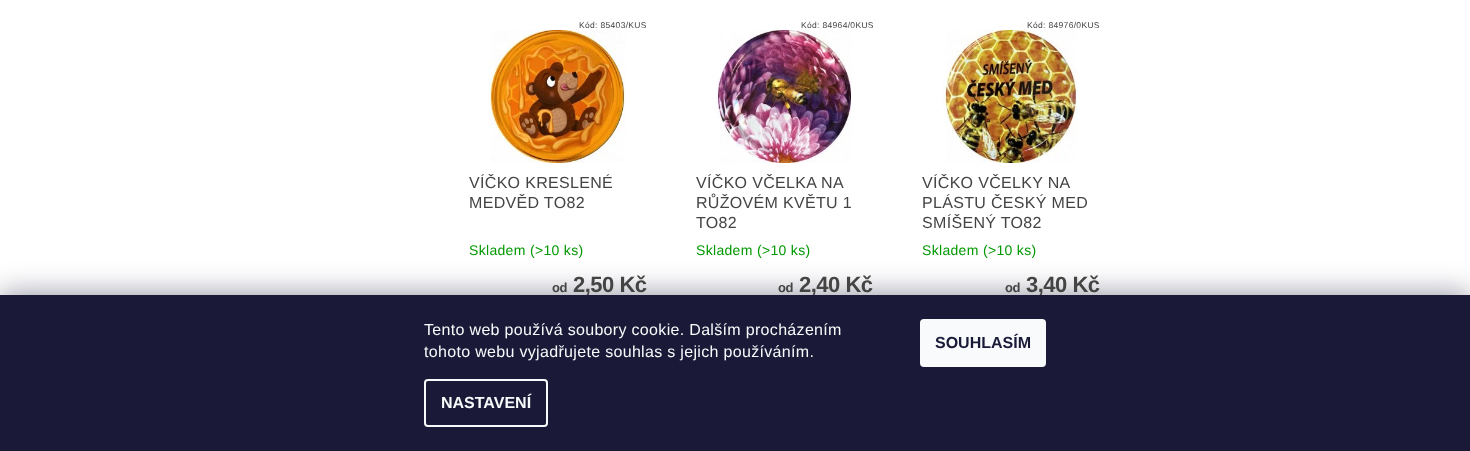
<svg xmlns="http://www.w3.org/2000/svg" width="1470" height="451">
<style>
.a{font:8.5px Liberation Sans;letter-spacing:0.32px;fill:#444}
.b{font:16px Liberation Sans;letter-spacing:0.32px;fill:#444}
.c{font:14px Liberation Sans;letter-spacing:0.32px;fill:#009901}
.d{font:bold 13px Liberation Sans;letter-spacing:-0.5px;fill:#444}
.e{font:bold 22px Liberation Sans;letter-spacing:-0.5px;fill:#444}
.f{font:16px Liberation Sans;letter-spacing:0.32px;fill:#f8fafb}
.g{font:bold 16px Liberation Sans;fill:#f8fafb}
.h{font:bold 16px Liberation Sans;fill:#1a1937}
</style>
<rect width="100%" height="100%" fill="#fff"/>
<image href="1.png" x="488" y="30" width="138" height="133"/>
<image href="2.png" x="715" y="30" width="137" height="133"/>
<image href="3.png" x="942" y="30" width="136" height="133"/>
<path fill="#1b193980" filter="blur(15px)" d="M0 295h1470v156H0z"/>
<text class="a" x="579" y="28">Kód: 85403/KUS</text>
<text class="b" x="469" y="188">VÍČKO KRESLENÉ</text>
<text class="b" x="469" y="208">MEDVĚD TO82</text>
<text class="c" x="469" y="255">Skladem (&gt;10 ks)</text>
<text class="d" x="552" y="292">od</text>
<text class="e" x="573" y="292">2,50 Kč</text>
<text class="a" x="801" y="28">Kód: 84964/0KUS</text>
<text class="b" x="696" y="188">VÍČKO VČELKA NA</text>
<text class="b" x="696" y="208">RŮŽOVÉM KVĚTU 1</text>
<text class="b" x="696" y="228">TO82</text>
<text class="c" x="696" y="255">Skladem (&gt;10 ks)</text>
<text class="d" x="778" y="292">od</text>
<text class="e" x="799" y="292">2,40 Kč</text>
<text class="a" x="1027" y="28">Kód: 84976/0KUS</text>
<text class="b" x="922" y="188">VÍČKO VČELKY NA</text>
<text class="b" x="922" y="208">PLÁSTU ČESKÝ MED</text>
<text class="b" x="922" y="228">SMÍŠENÝ TO82</text>
<text class="c" x="922" y="255">Skladem (&gt;10 ks)</text>
<text class="d" x="1005" y="292">od</text>
<text class="e" x="1026" y="292">3,40 Kč</text>
<path fill="#1a1937" d="M0 295h1470v156H0z"/>
<text class="f" x="424" y="335">Tento web používá soubory cookie. Dalším procházením</text>
<text class="f" x="424" y="357">tohoto webu vyjadřujete souhlas s jejich používáním.</text>
<rect fill="none" stroke="#f8fafb" stroke-width="2" x="425" y="380" width="122" height="46" rx="3"/>
<text class="g" x="441" y="408">NASTAVENÍ</text>
<rect fill="#f8fafb" x="920" y="319" width="126" height="48" rx="4"/>
<text class="h" x="935" y="348">SOUHLASÍM</text>
</svg>
